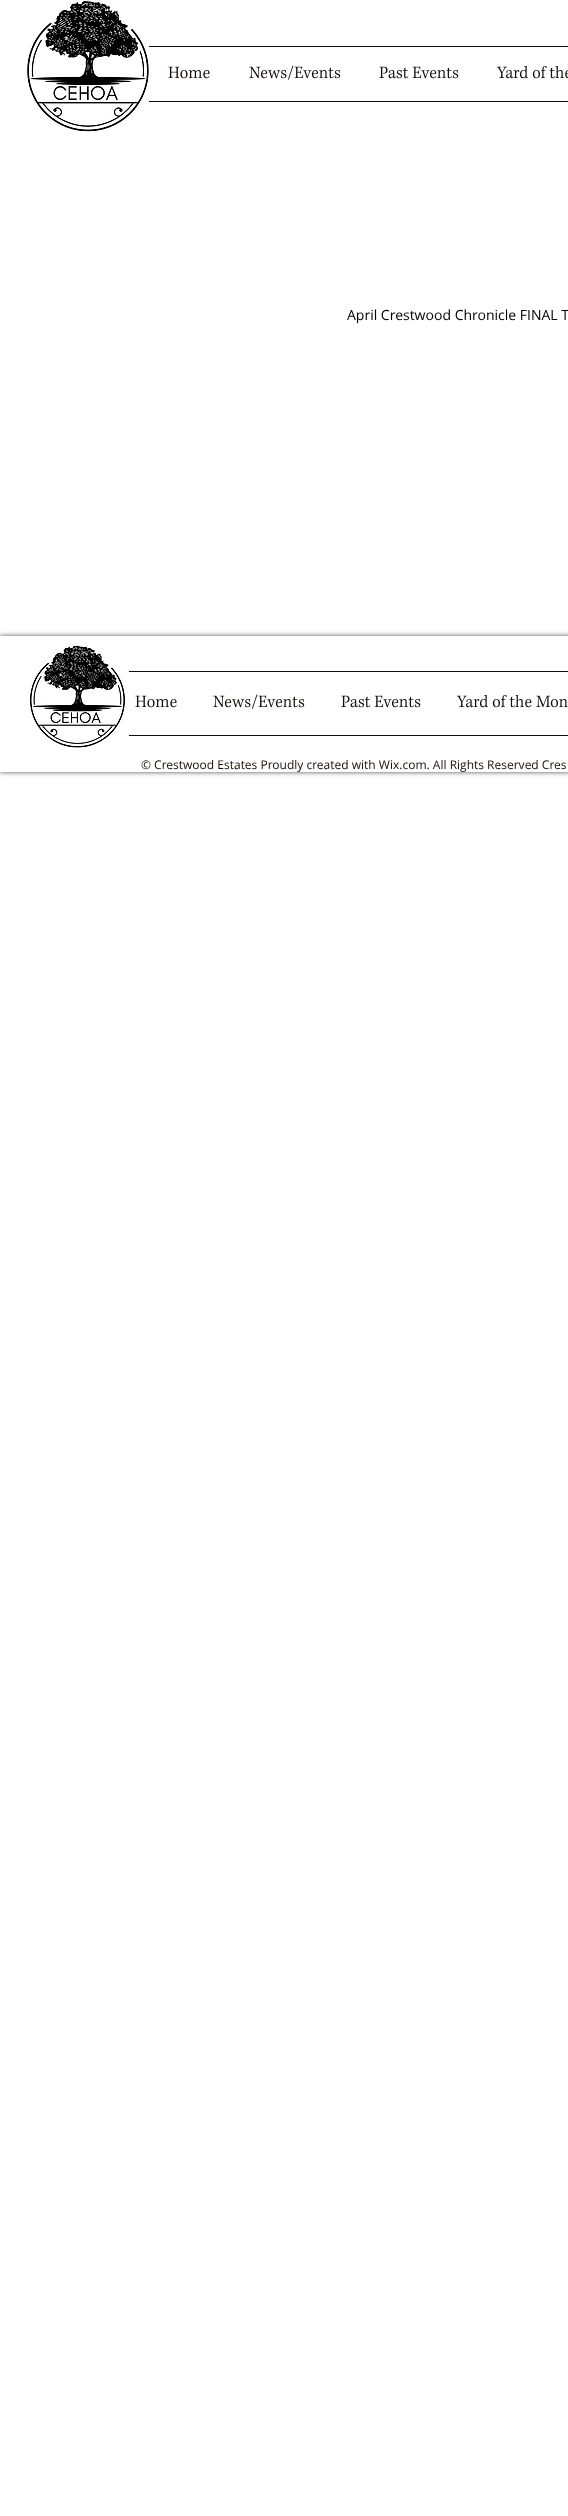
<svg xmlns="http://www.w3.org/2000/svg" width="568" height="2516">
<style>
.a{font:14px Open Sans;fill:#000}
.b{font:12px Open Sans;fill:#190f04}
</style>
<defs>
<clipPath id="clip1"><path d="M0 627h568v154h-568zm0 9h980v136h-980z" clip-rule="evenodd"/></clipPath>
</defs>
<rect width="100%" height="100%" fill="#fff"/>
<image href="1.png" x="25" y="0" width="126" height="132"/>
<path fill="#120909" d="M149 46h419v1H149z"/>
<path fill="#120909" d="M149 101h419v1H149z"/>
<image href="2.png" x="168" y="66" width="42" height="13"/>
<image href="3.png" x="249" y="65" width="92" height="15"/>
<image href="4.png" x="379" y="66" width="80" height="13"/>
<image href="5.png" x="496" y="65" width="72" height="14"/>
<g clip-path="url(#clip1)">
<path fill="#000000b3" filter="blur(2.5px)" d="M0 636h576v136H0z"/>
</g>
<image href="6.png" x="28" y="645" width="101" height="103"/>
<path fill="#120909" d="M129 671h439v1H129z"/>
<path fill="#120909" d="M129 735h439v1H129z"/>
<image href="2.png" x="135" y="695" width="42" height="13"/>
<image href="3.png" x="213" y="694" width="92" height="15"/>
<image href="4.png" x="341" y="695" width="80" height="13"/>
<image href="7.png" x="456" y="694" width="112" height="14"/>
<text class="a" x="347" y="320">April Crestwood Chronicle FINAL T</text>
<text class="b" x="141" y="769">© Crestwood Estates Proudly created with Wix.com. All Rights Reserved Cres</text>
</svg>
